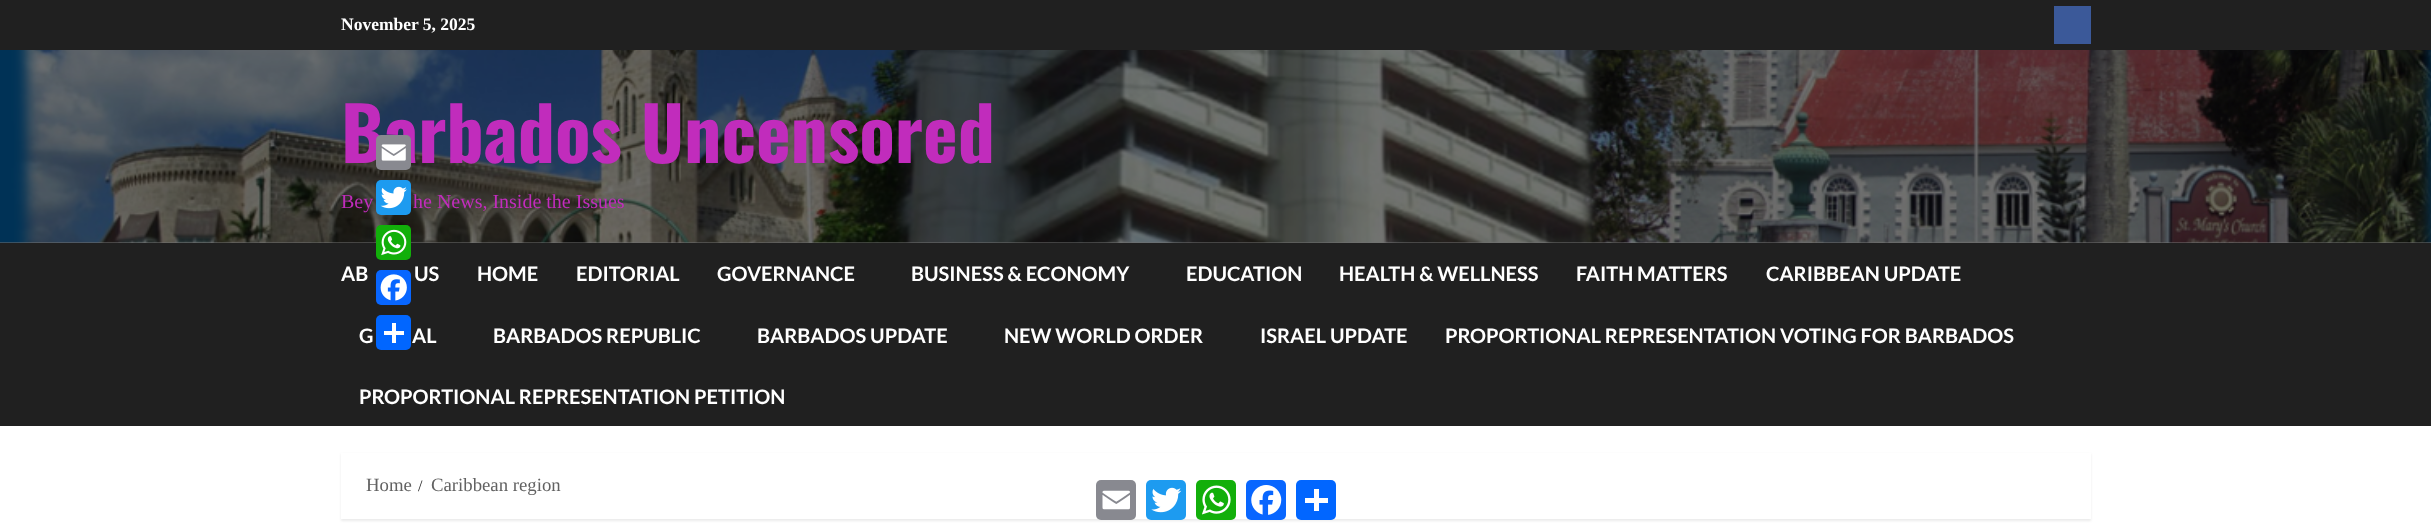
<svg xmlns="http://www.w3.org/2000/svg" width="2431" height="529">
<style>
.a{font:bold 17.5px Liberation Serif;fill:#fff}
.b{font:bold 73.75px Oswald;fill:#c12cbc}
.c{font:20px Liberation Serif;fill:#c12cbc}
.d{font:bold 20px Lato;fill:#fff}
.e{font:18.75px Liberation Serif;fill:#626262}
.f{font:16px Liberation Serif;fill:#1f1f1f}
</style>
<rect width="100%" height="100%" fill="#fff"/>
<path fill="#737373" d="M0 242h2431v1H0z"/>
<path fill="#202020" d="M0 0h2431v50H0z"/>
<path fill="#3b5999" d="M2054 6h37v38H2054z"/>
<image href="1.png" x="0" y="50" width="2431" height="193"/>
<path fill="#202020" d="M0 243h2431v183H0z"/>
<rect fill="#1d9bf0" x="376" y="180" width="35" height="35" rx="5"/>
<image href="3.png" x="380" y="186" width="27" height="23"/>
<rect fill="#12af0a" x="376" y="225" width="35" height="35" rx="5"/>
<image href="4.png" x="381" y="229" width="26" height="27"/>
<rect fill="#0866ff" x="376" y="270" width="35" height="35" rx="5"/>
<image href="5.png" x="380" y="274" width="27" height="27"/>
<rect fill="#0166ff" x="376" y="315" width="35" height="35" rx="5"/>
<path fill="#fff" d="M392 323h4v20H392z"/>
<path fill="#fff" d="M384 331h20v4H384z"/>
<path fill="#00000014" filter="blur(1px)" d="M341 454h1750v67H341z"/>
<path fill="#fff" d="M341 453h1750v66H341z"/>
<rect fill="#888990" x="1096" y="480" width="40" height="40" rx="5"/>
<image href="6.png" x="1102" y="490" width="28" height="20"/>
<rect fill="#1d9bf0" x="1146" y="480" width="40" height="40" rx="5"/>
<image href="7.png" x="1151" y="487" width="31" height="26"/>
<rect fill="#12af0a" x="1196" y="480" width="40" height="40" rx="5"/>
<image href="8.png" x="1202" y="485" width="29" height="30"/>
<rect fill="#0866ff" x="1246" y="480" width="40" height="40" rx="5"/>
<image href="9.png" x="1251" y="485" width="31" height="30"/>
<rect fill="#0166ff" x="1296" y="480" width="40" height="40" rx="5"/>
<path fill="#fff" d="M1314 489h5v22H1314z"/>
<path fill="#fff" d="M1305 498h23v5H1305z"/>
<text class="a" x="341" y="30">November 5, 2025</text>
<text class="b" x="341" y="163">Barbados Uncensored</text>
<text class="c" x="341" y="208">Bey</text>
<text class="c" x="413" y="208">he News, Inside the Issues</text>
<text class="d" x="341" y="281">AB</text>
<text class="d" x="414" y="281">US</text>
<text class="d" x="477" y="281">HOME</text>
<text class="d" x="576" y="281">EDITORIAL</text>
<text class="d" x="717" y="281">GOVERNANCE</text>
<text class="d" x="911" y="281">BUSINESS &amp; ECONOMY</text>
<text class="d" x="1186" y="281">EDUCATION</text>
<text class="d" x="1339" y="281">HEALTH &amp; WELLNESS</text>
<text class="d" x="1576" y="281">FAITH MATTERS</text>
<text class="d" x="1766" y="281">CARIBBEAN UPDATE</text>
<text class="d" x="359" y="343">G</text>
<text class="d" x="412" y="343">AL</text>
<text class="d" x="493" y="343">BARBADOS REPUBLIC</text>
<text class="d" x="757" y="343">BARBADOS UPDATE</text>
<text class="d" x="1004" y="343">NEW WORLD ORDER</text>
<text class="d" x="1260" y="343">ISRAEL UPDATE</text>
<text class="d" x="1445" y="343">PROPORTIONAL REPRESENTATION VOTING FOR BARBADOS</text>
<text class="d" x="359" y="404">PROPORTIONAL REPRESENTATION PETITION</text>
<rect fill="#888990" x="376" y="135" width="35" height="35" rx="5"/>
<image href="2.png" x="381" y="144" width="25" height="17"/>
<text class="e" x="366" y="491">Home</text>
<text class="f" x="418" y="491">/</text>
<text class="e" x="431" y="491">Caribbean region</text>
</svg>
